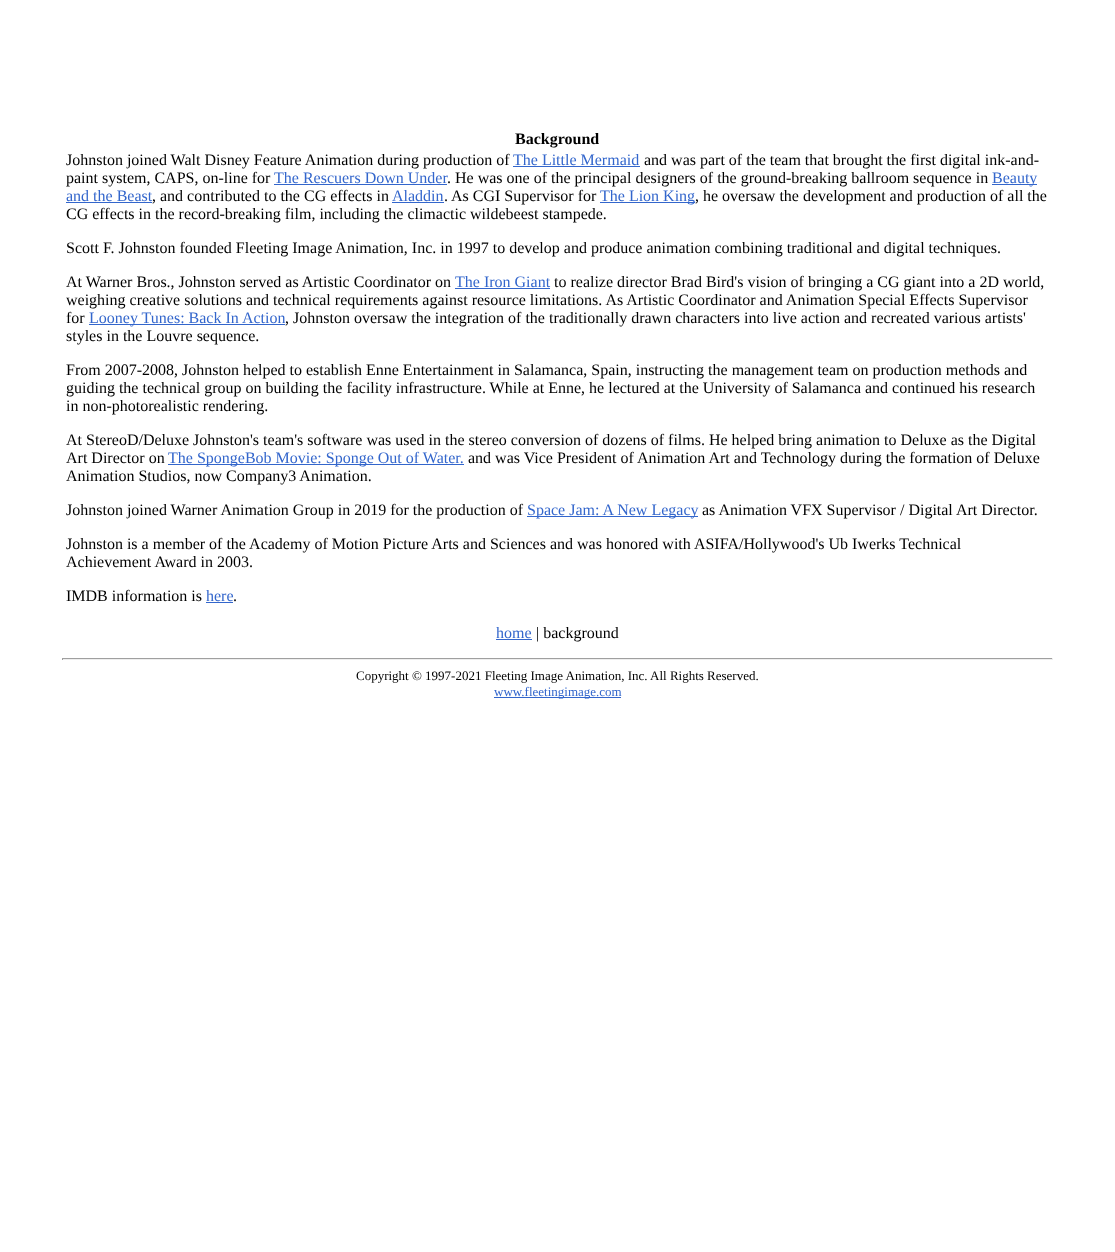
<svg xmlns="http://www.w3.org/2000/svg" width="1115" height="1252">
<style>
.a{font:bold 16px Liberation Serif;fill:#000}
.b{font:16px Liberation Serif;fill:#000}
.c{font:16px Liberation Serif;fill:#36c}
.d{font:13px Liberation Serif;fill:#000}
.e{font:13px Liberation Serif;fill:#36c}
</style>
<rect width="100%" height="100%" fill="#fff"/>
<path fill="#36c" d="M513 166h127v1H513z"/>
<path fill="#36c" d="M274 184h173v1H274z"/>
<path fill="#36c" d="M992 184h45v1H992z"/>
<path fill="#36c" d="M66 202h86v1H66z"/>
<path fill="#36c" d="M392 202h52v1H392z"/>
<path fill="#36c" d="M600 202h95v1H600z"/>
<path fill="#36c" d="M455 288h95v1H455z"/>
<path fill="#36c" d="M89 324h196v1H89z"/>
<path fill="#36c" d="M168 464h296v1H168z"/>
<path fill="#36c" d="M527 516h171v1H527z"/>
<path fill="#36c" d="M206 602h27v1H206z"/>
<path fill="#36c" d="M496 639h36v1H496z"/>
<path fill="#9f9f9f" d="M62 658h991v1H62z"/>
<path fill="#eee" d="M1052 658h1v2H1052z"/>
<path fill="#eee" d="M62 659h991v1H62z"/>
<path fill="#9f9f9f" d="M62 658h1v2H62z"/>
<path fill="#36c" d="M494 697h127v1H494z"/>
<text class="a" x="515" y="144">Background</text>
<text class="b" x="66" y="165">Johnston joined Walt Disney Feature Animation during production of</text>
<text class="c" x="513" y="165">The Little Mermaid</text>
<text class="b" x="644" y="165">and was part of the team that brought the first digital ink-and-</text>
<text class="b" x="66" y="183">paint system, CAPS, on-line for</text>
<text class="c" x="274" y="183">The Rescuers Down Under</text>
<text class="b" x="447" y="183">. He was one of the principal designers of the ground-breaking ballroom sequence in</text>
<text class="c" x="992" y="183">Beauty</text>
<text class="c" x="66" y="201">and the Beast</text>
<text class="b" x="152" y="201">,</text>
<text class="b" x="160" y="201">and contributed to the CG effects in</text>
<text class="c" x="392" y="201">Aladdin</text>
<text class="b" x="444" y="201">.</text>
<text class="b" x="451" y="201">As CGI Supervisor for</text>
<text class="c" x="600" y="201">The Lion King</text>
<text class="b" x="695" y="201">, he oversaw the development and production of all the</text>
<text class="b" x="66" y="219">CG effects in the record-breaking film, including the climactic wildebeest stampede.</text>
<text class="b" x="66" y="253">Scott F. Johnston founded Fleeting Image Animation, Inc. in 1997 to develop and produce animation combining traditional and digital techniques.</text>
<text class="b" x="66" y="287">At Warner Bros., Johnston served as Artistic Coordinator on</text>
<text class="c" x="455" y="287">The Iron Giant</text>
<text class="b" x="554" y="287">to realize director Brad Bird's vision of bringing a CG giant into a 2D world,</text>
<text class="b" x="66" y="305">weighing creative solutions and technical requirements against resource limitations. As Artistic Coordinator and Animation Special Effects Supervisor</text>
<text class="b" x="66" y="323">for</text>
<text class="c" x="89" y="323">Looney Tunes: Back In Action</text>
<text class="b" x="285" y="323">, Johnston oversaw the integration of the traditionally drawn characters into live action and recreated various artists'</text>
<text class="b" x="66" y="341">styles in the Louvre sequence.</text>
<text class="b" x="66" y="375">From 2007-2008, Johnston helped to establish Enne Entertainment in Salamanca, Spain, instructing the management team on production methods and</text>
<text class="b" x="66" y="393">guiding the technical group on building the facility infrastructure. While at Enne, he lectured at the University of Salamanca and continued his research</text>
<text class="b" x="66" y="411">in non-photorealistic rendering.</text>
<text class="b" x="66" y="445">At StereoD/Deluxe Johnston's team's software was used in the stereo conversion of dozens of films. He helped bring animation to Deluxe as the Digital</text>
<text class="b" x="66" y="463">Art Director on</text>
<text class="c" x="168" y="463">The SpongeBob Movie: Sponge Out of Water.</text>
<text class="b" x="468" y="463">and was Vice President of Animation Art and Technology during the formation of Deluxe</text>
<text class="b" x="66" y="481">Animation Studios, now Company3 Animation.</text>
<text class="b" x="66" y="515">Johnston joined Warner Animation Group in 2019 for the production of</text>
<text class="c" x="527" y="515">Space Jam: A New Legacy</text>
<text class="b" x="702" y="515">as Animation VFX Supervisor / Digital Art Director.</text>
<text class="b" x="66" y="549">Johnston is a member of the Academy of Motion Picture Arts and Sciences and was honored with ASIFA/Hollywood's Ub Iwerks Technical</text>
<text class="b" x="66" y="567">Achievement Award in 2003.</text>
<text class="b" x="66" y="601">IMDB information is</text>
<text class="c" x="206" y="601">here</text>
<text class="b" x="233" y="601">.</text>
<text class="c" x="496" y="638">home</text>
<text class="b" x="536" y="638">| background</text>
<text class="d" x="356" y="680">Copyright © 1997-2021 Fleeting Image Animation, Inc. All Rights Reserved.</text>
<text class="e" x="494" y="696">www.fleetingimage.com</text>
</svg>
